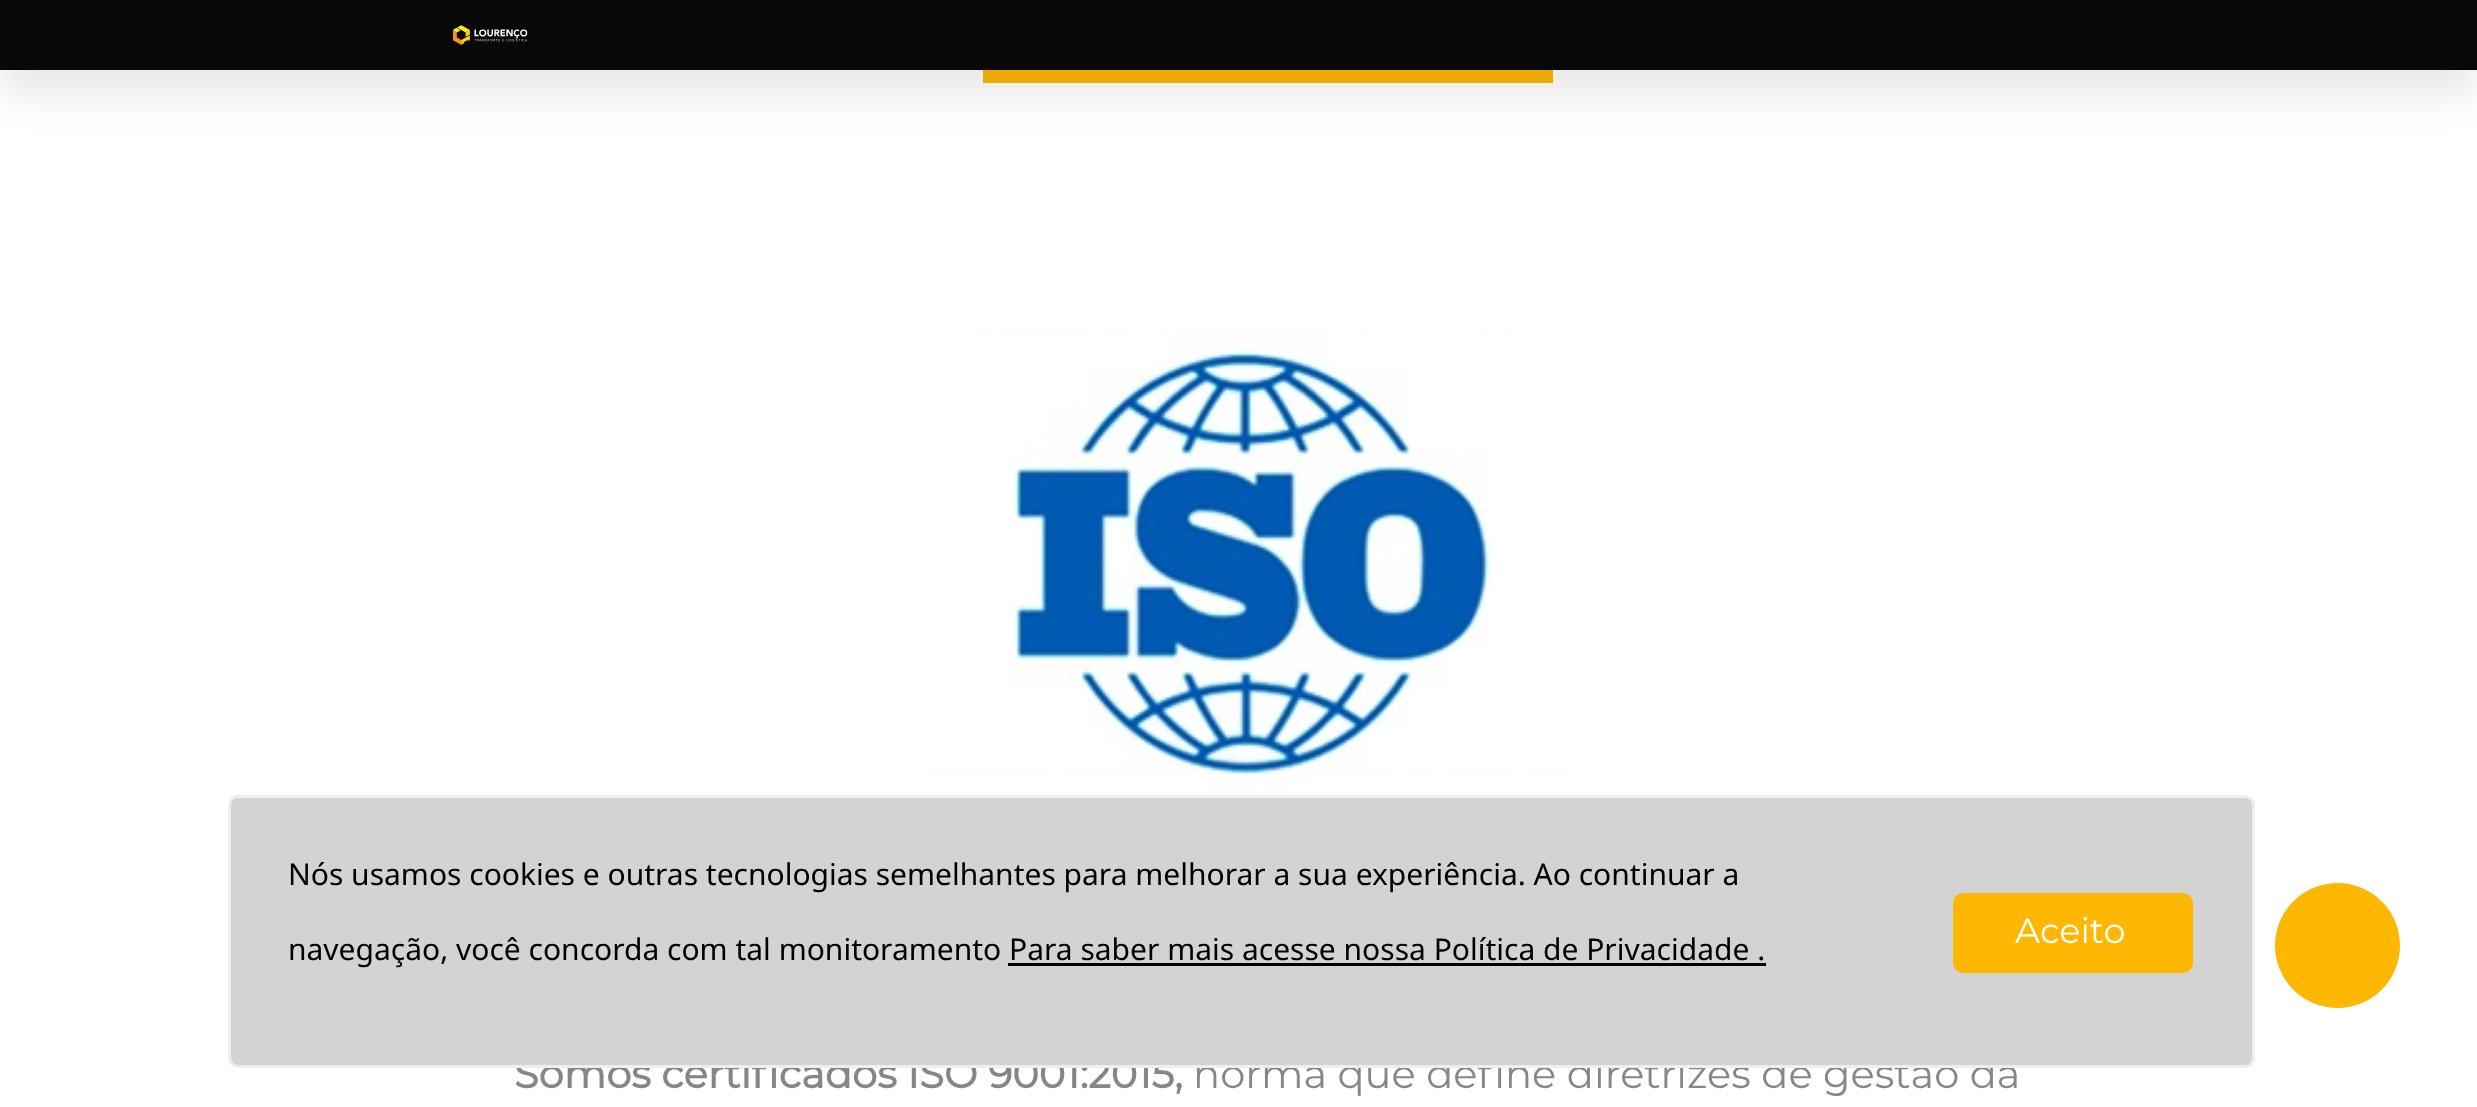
<svg xmlns="http://www.w3.org/2000/svg" width="2477" height="1107">
<style>
.a{font:bold 40px Montserrat;fill:#868686}
.b{font:40px Montserrat;fill:#868686}
.c{font:35px Montserrat;fill:#fff}
.d{font:30px Noto Sans;fill:#000}
</style>
<rect width="100%" height="100%" fill="#fff"/>
<path fill="#feb703" d="M983 70h570v13H983z"/>
<path fill="#1919191a" filter="blur(19px)" d="M0 25h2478v70H0z"/>
<path fill="#080808" d="M0 0h2477v70H0z"/>
<image href="1.png" x="453" y="25" width="75" height="20"/>
<circle fill="#feb703" cx="2337.5" cy="945.5" r="62.5"/>
<image href="2.png" x="927" y="328" width="641" height="467"/>
<text class="a" x="514" y="1088">Somos certificados ISO 9001:2015,</text>
<text class="b" x="1193" y="1088">norma que define diretrizes de gestão da</text>
<rect fill="#d3d3d3" stroke="#eee" stroke-width="3" x="229.5" y="796.5" width="2024" height="270" rx="8.5"/>
<rect fill="#feb703" stroke="#feb703" stroke-width="3" x="1954.5" y="894.5" width="237" height="77" rx="8.5"/>
<text class="c" x="2015" y="943">Aceito</text>
<path fill="#000" d="M1008 963h758v3H1008z"/>
<text class="d" x="288" y="960">navegação, você concorda com tal monitoramento Para saber mais acesse nossa Política de Privacidade .</text>
<text class="d" x="288" y="885">Nós usamos cookies e outras tecnologias semelhantes para melhorar a sua experiência. Ao continuar a</text>
</svg>
